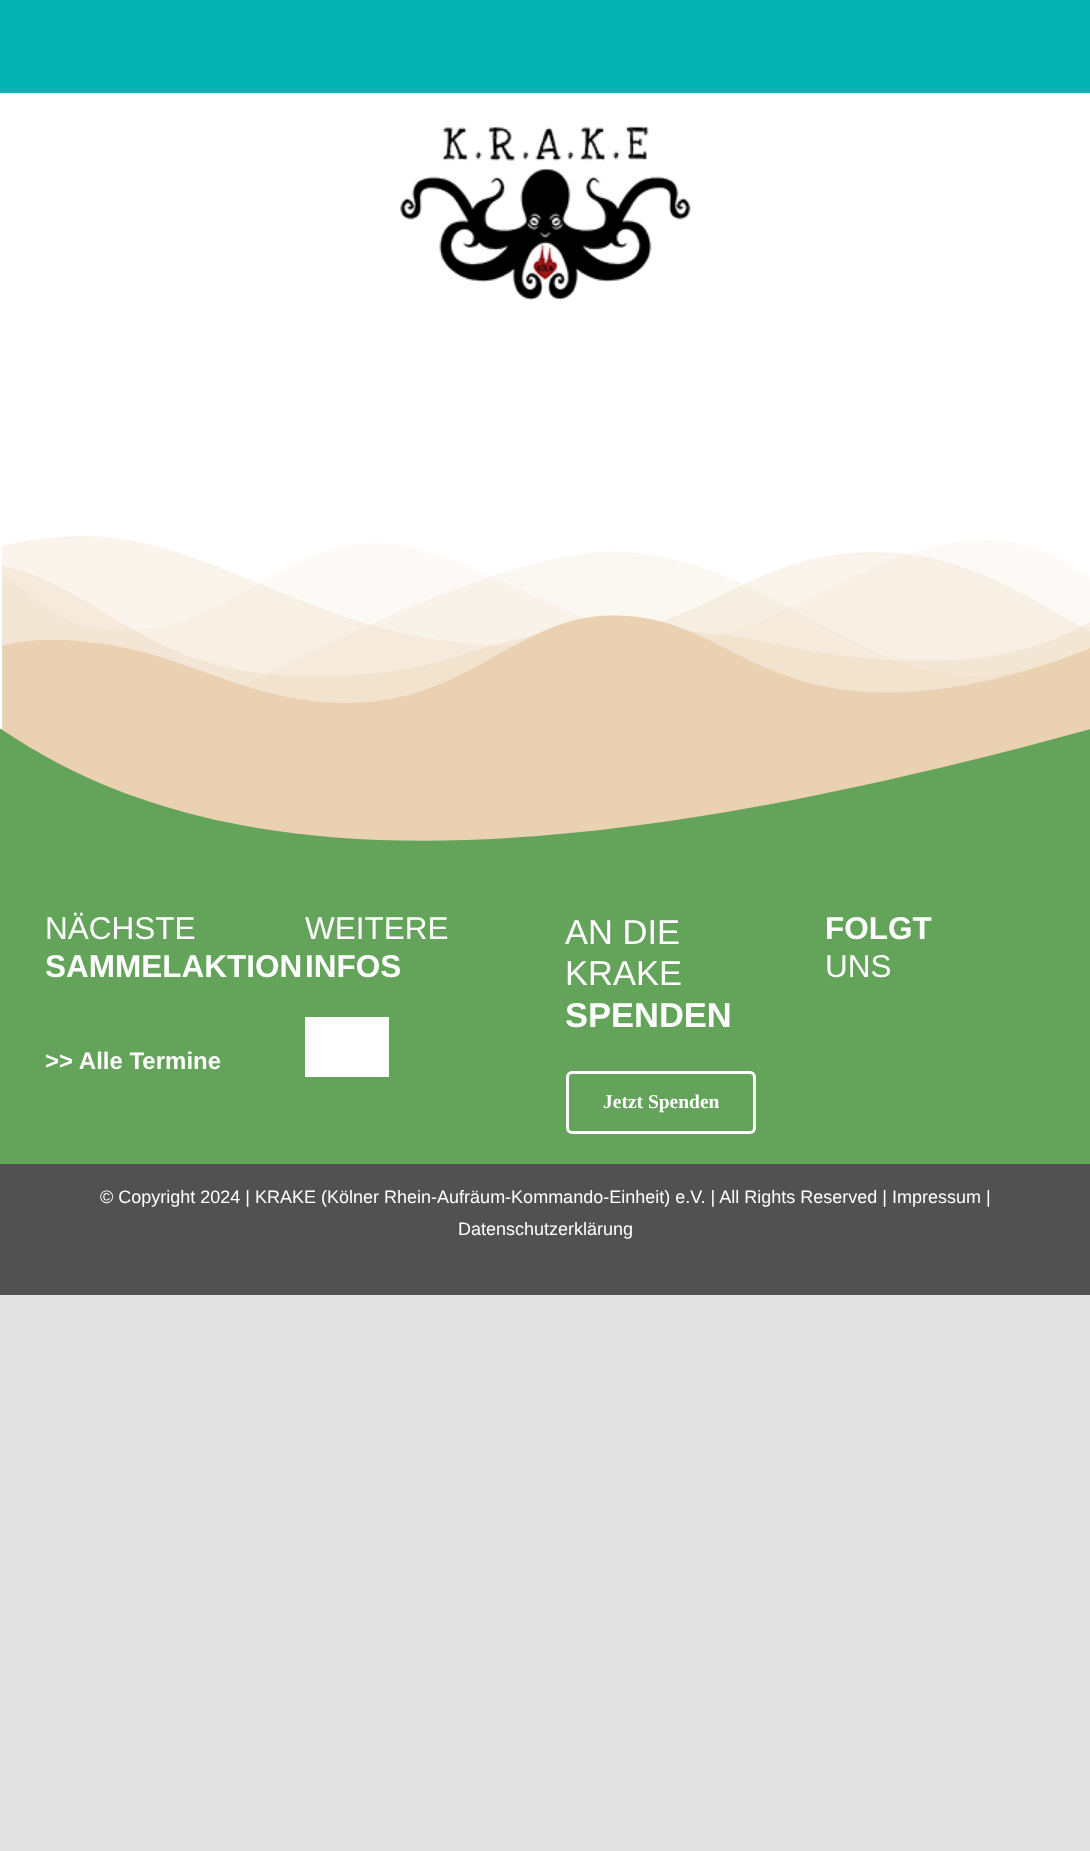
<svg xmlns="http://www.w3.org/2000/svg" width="1090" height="1851">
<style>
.a{font:31.5px Liberation Sans;fill:#fff}
.b{font:bold 31.5px Liberation Sans;fill:#fff}
.c{font:bold 24px Liberation Sans;fill:#fff}
.d{font:34.5px Liberation Sans;fill:#fff}
.e{font:bold 34.5px Liberation Sans;fill:#fff}
.f{font:bold 19.5px Liberation Serif;fill:#fff}
.g{font:18px Liberation Sans;fill:#fff}
</style>
<rect width="100%" height="100%" fill="#e2e2e2"/>
<path fill="#fff" d="M0 93h1090v636H0z"/>
<path fill="#04b2b3" d="M0 0h1090v93H0z"/>
<image href="1.png" x="400" y="126" width="291" height="175"/>
<image href="2.png" x="2" y="536" width="1088" height="193"/>
<path fill="#63a35a" d="M0 729h1090v435H0z"/>
<path fill="#ead1b1" d="M1 729c218 149 545 149 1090 0z"/>
<path fill="#fff" d="M305 1017h84v60H305z"/>
<rect fill="none" stroke="#fff" stroke-width="3" x="567.5" y="1072.5" width="187" height="60" rx="4.5"/>
<path fill="#515151" d="M0 1164h1090v131H0z"/>
<text class="a" x="45" y="939">NÄCHSTE</text>
<text class="b" x="45" y="977">SAMMELAKTION</text>
<text class="c" x="45" y="1069">&gt;&gt; Alle Termine</text>
<text class="a" x="305" y="939">WEITERE</text>
<text class="b" x="305" y="977">INFOS</text>
<text class="d" x="565" y="944">AN DIE</text>
<text class="d" x="565" y="985">KRAKE</text>
<text class="e" x="565" y="1027">SPENDEN</text>
<text class="f" x="603" y="1108">Jetzt Spenden</text>
<text class="b" x="825" y="939">FOLGT</text>
<text class="a" x="825" y="977">UNS</text>
<text class="g" x="100" y="1203">© Copyright 2024 | KRAKE (Kölner Rhein-Aufräum-Kommando-Einheit) e.V. | All Rights Reserved | Impressum |</text>
<text class="g" x="458" y="1235">Datenschutzerklärung</text>
</svg>
